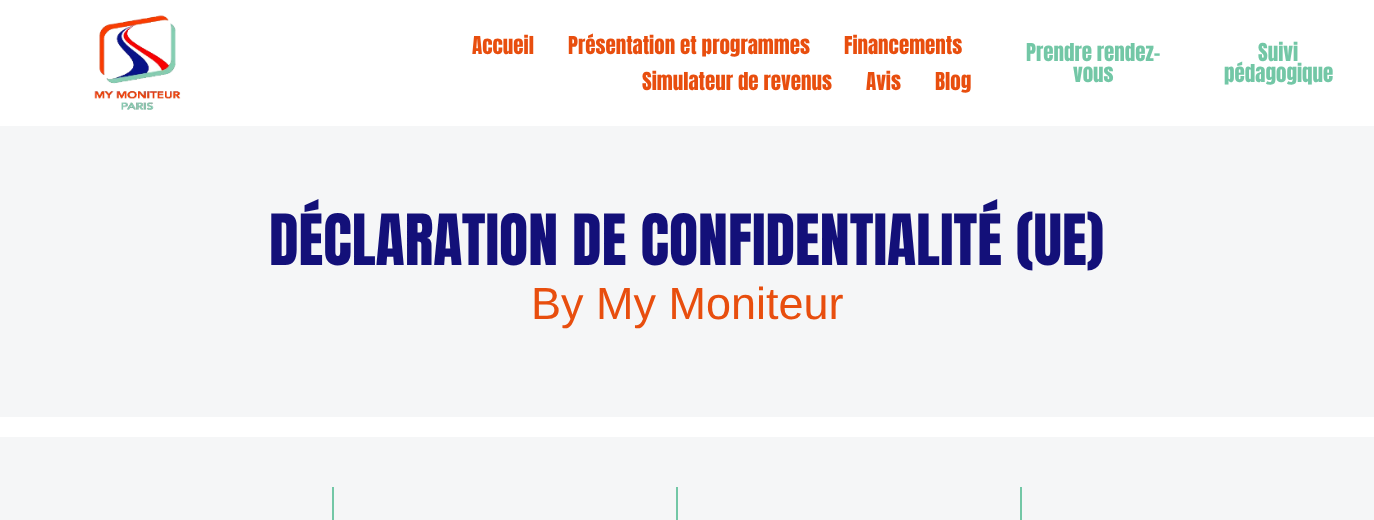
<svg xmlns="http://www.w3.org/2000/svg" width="1374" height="520">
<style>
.a{font:21px Anton;fill:#e84e0e}
.b{font:21px Anton;fill:#73c7a6}
.c{font:60px Anton;fill:#131079}
.d{font:45px Liberation Sans;fill:#e84e0e}
</style>
<rect width="100%" height="100%" fill="#fff"/>
<image href="1.png" x="94" y="15" width="87" height="95"/>
<path fill="#f5f6f7" d="M0 126h1374v291H0z"/>
<path fill="#f5f6f7" d="M0 437h1374v83H0z"/>
<path fill="#73c7a6" d="M332 487h2v33H332z"/>
<path fill="#73c7a6" d="M676 487h2v33H676z"/>
<path fill="#73c7a6" d="M1020 487h2v33H1020z"/>
<text class="a" x="472" y="54">Accueil</text>
<text class="a" x="568" y="54">Présentation et programmes</text>
<text class="a" x="844" y="54">Financements</text>
<text class="a" x="642" y="90">Simulateur de revenus</text>
<text class="a" x="866" y="90">Avis</text>
<text class="a" x="935" y="90">Blog</text>
<text class="b" x="1026" y="61">Prendre rendez-</text>
<text class="b" x="1073" y="82">vous</text>
<text class="b" x="1258" y="61">Suivi</text>
<text class="b" x="1224" y="82">pédagogique</text>
<text class="c" x="269" y="265">DÉCLARATION DE CONFIDENTIALITÉ (UE)</text>
<text class="d" x="531" y="319">By My Moniteur</text>
</svg>
